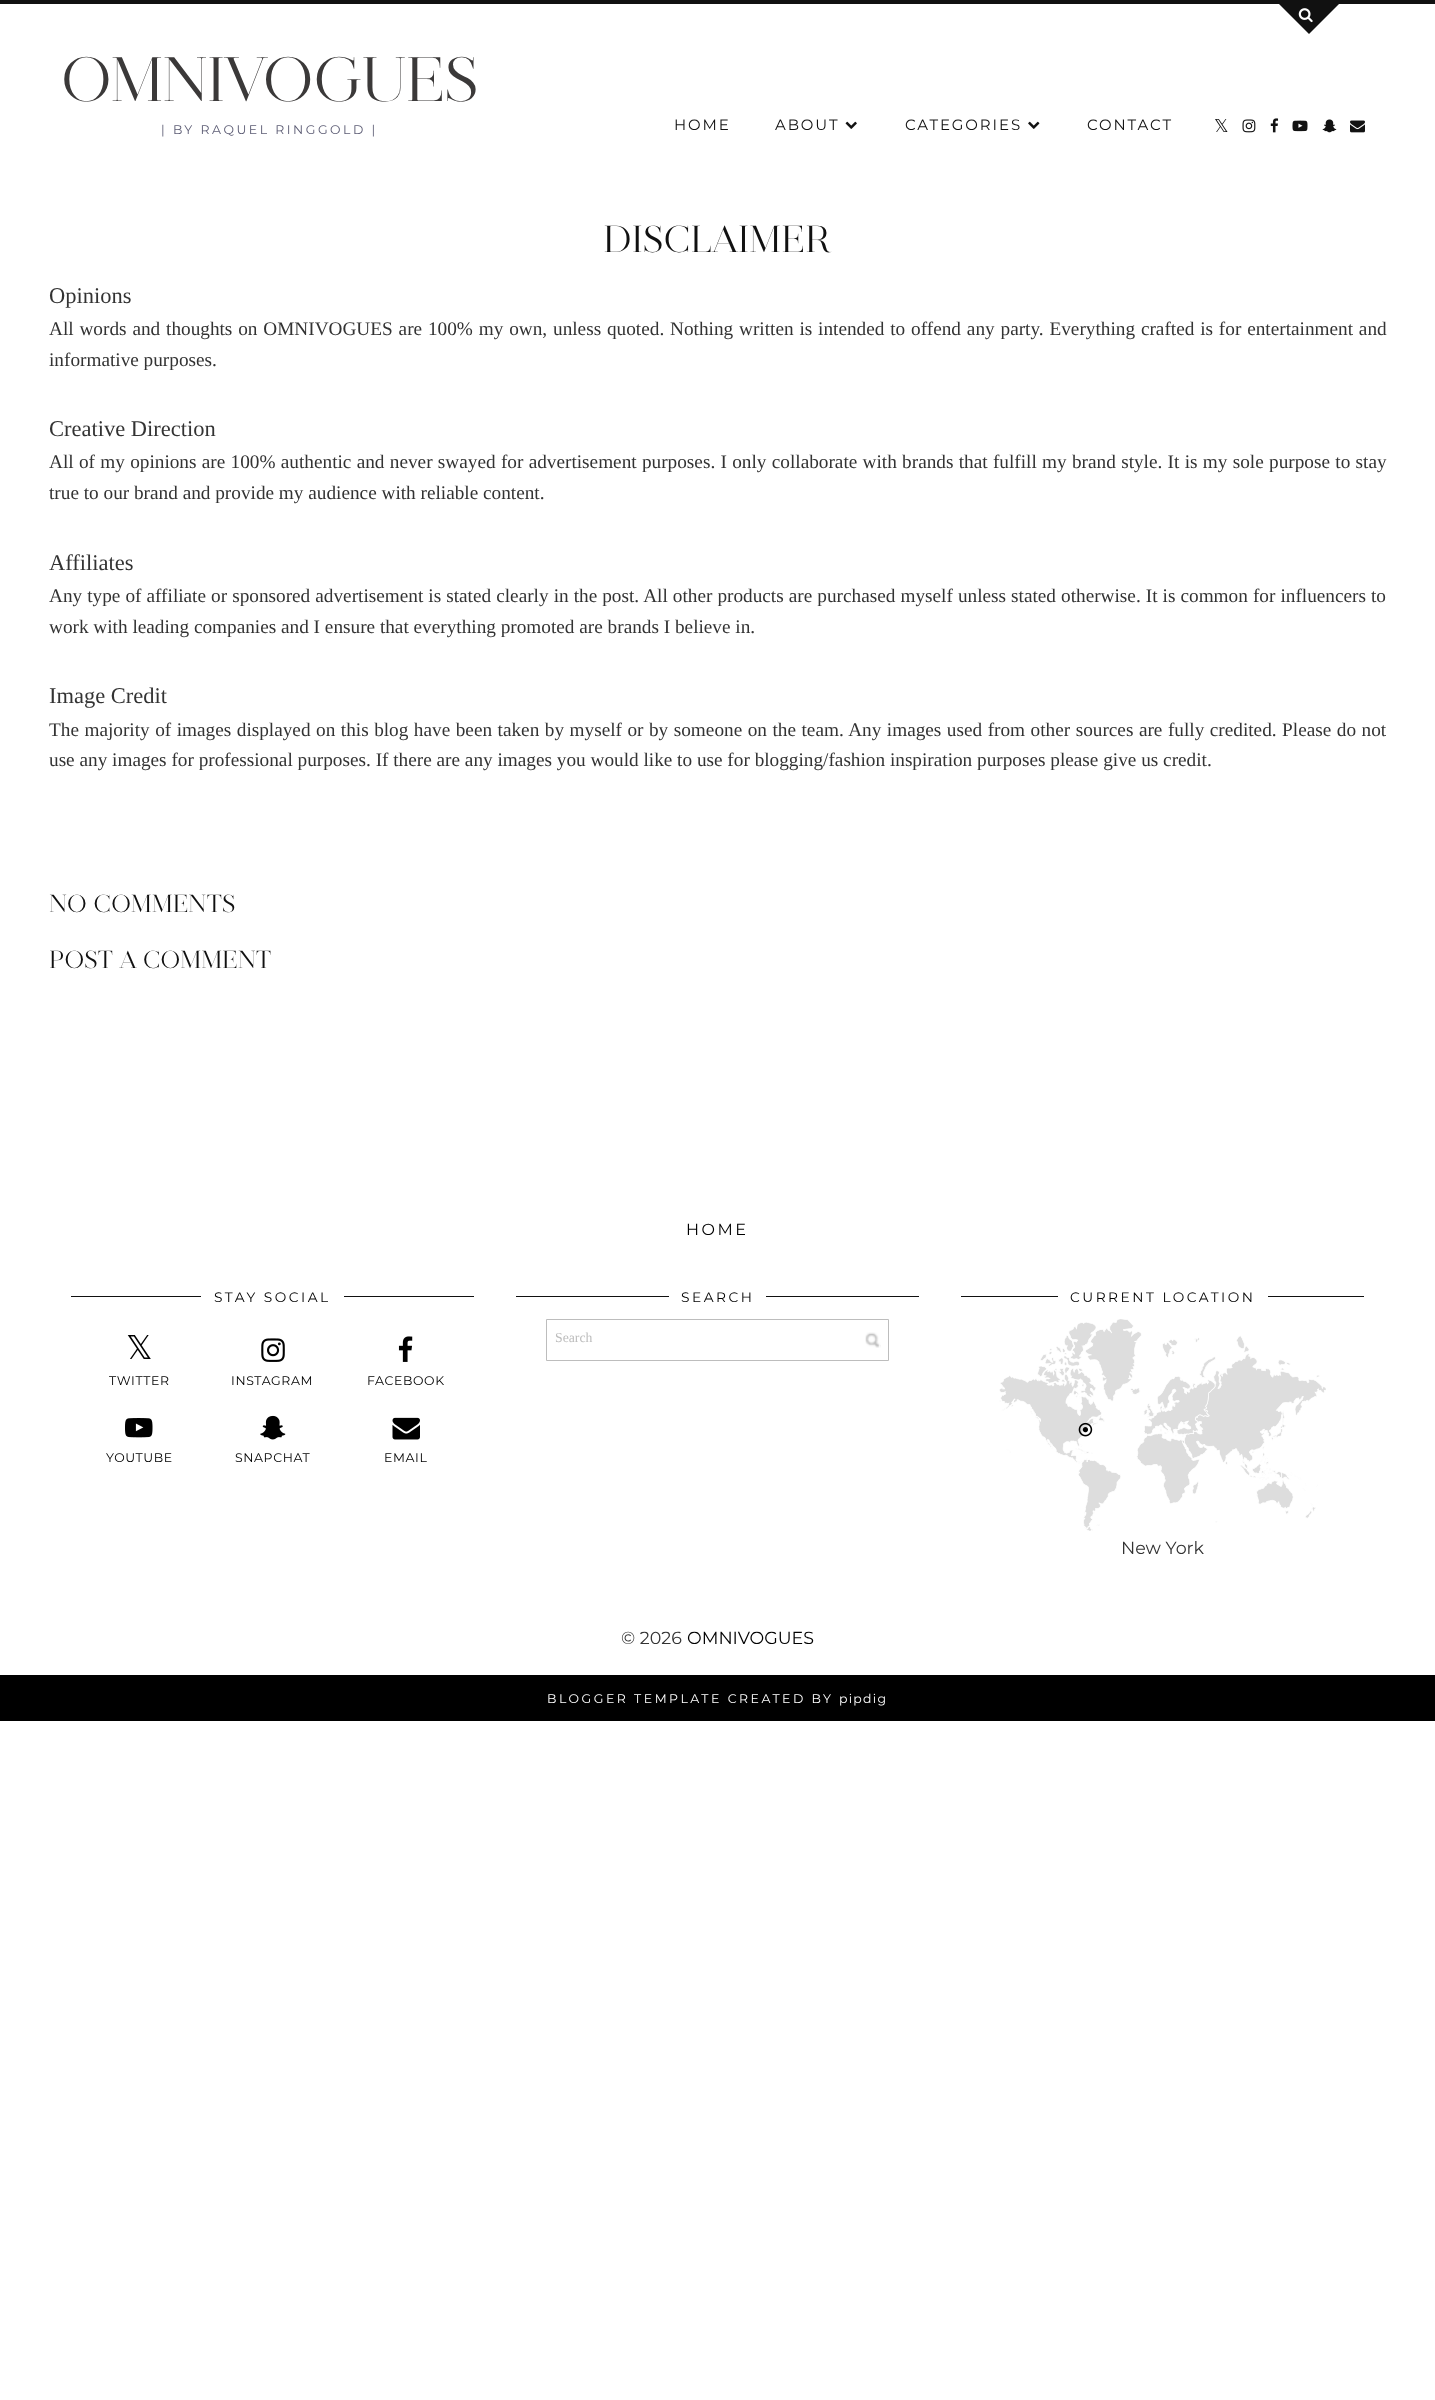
<svg xmlns="http://www.w3.org/2000/svg" width="1435" height="2400">
<style>
.a{font:62.5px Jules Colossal;letter-spacing:-1.25px;fill:#3b3939}
.b{font:100 12.5px Montserrat;letter-spacing:2.5px;fill:#5c5c74}
.c{font:100 15px Montserrat;letter-spacing:1.9px;fill:#111}
.d{font:18px DejaVu Sans;letter-spacing:1.9px;fill:#111}
.e{font:37.5px Jules Colossal;fill:#111}
.f{font:22.5px Liberation Serif;fill:#333}
.g{font:19.25px Liberation Serif;fill:#333}
.h{font:24.5px Jules Colossal;fill:#111}
.i{font:100 16px Montserrat;letter-spacing:2.5px;fill:#000}
.j{font:100 13.75px Montserrat;letter-spacing:2.5px;fill:#000}
.k{font:33px DejaVu Sans;fill:#000}
.l{font:100 12.5px Montserrat;letter-spacing:0.6px;fill:#000}
.m{font:13.75px Liberation Serif;fill:#bdbdbd}
.n{font:100 17.5px Montserrat;fill:#333}
.o{font:100 17.5px Montserrat;fill:#000}
.p{font:100 12.5px Montserrat;letter-spacing:2.5px;fill:#fff}
.q{font:100 12.5px Montserrat;letter-spacing:1.25px;fill:#fff}
</style>
<rect width="100%" height="100%" fill="#fff"/>
<path fill="#111" d="M0 0h1435v4H0z"/>
<path fill="#111" d="M1309-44l39 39l-39 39l-39-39z"/>
<image href="1.png" x="1298" y="8" width="15" height="15"/>
<image href="2.png" x="845" y="121" width="12" height="8"/>
<image href="3.png" x="1028" y="121" width="12" height="8"/>
<image href="4.png" x="1242" y="119" width="14" height="14"/>
<image href="5.png" x="1270" y="118" width="9" height="15"/>
<image href="6.png" x="1292" y="120" width="16" height="12"/>
<image href="7.png" x="1322" y="119" width="15" height="14"/>
<image href="8.png" x="1350" y="120" width="15" height="13"/>
<path fill="#111" d="M71 1296h403v1H71z"/>
<path fill="#fff" d="M201 1296h143v1H201z"/>
<image href="9.png" x="261" y="1338" width="24" height="24"/>
<image href="10.png" x="398" y="1336" width="15" height="26"/>
<image href="11.png" x="125" y="1418" width="28" height="20"/>
<image href="12.png" x="260" y="1415" width="26" height="25"/>
<image href="13.png" x="392" y="1417" width="28" height="23"/>
<path fill="#111" d="M516 1296h403v1H516z"/>
<path fill="#fff" d="M669 1296h97v1H669z"/>
<image href="14.png" x="865" y="1332" width="16" height="16"/>
<path fill="none" stroke="#bdbdbd" d="M546.5 1319.5h342v41H546.5z"/>
<path fill="#111" d="M961 1296h403v1H961z"/>
<path fill="#fff" d="M1058 1296h210v1H1058z"/>
<image href="15.png" x="999" y="1319" width="327" height="212"/>
<path fill="#000" d="M0 1675h1435v46H0z"/>
<text class="a" x="60" y="101">OMNIVOGUES</text>
<text class="b" x="161" y="134">| BY RAQUEL RINGGOLD |</text>
<text class="c" x="674" y="130">HOME</text>
<text class="c" x="775" y="130">ABOUT</text>
<text class="c" x="905" y="130">CATEGORIES</text>
<text class="c" x="1087" y="130">CONTACT</text>
<text class="d" x="1214" y="132">𝕏</text>
<text class="e" x="603" y="252">DISCLAIMER</text>
<text class="f" x="49" y="303">Opinions</text>
<text class="g" x="49" y="335" word-spacing="1.05">All words and thoughts on OMNIVOGUES are 100% my own, unless quoted. Nothing written is intended to offend any party. Everything crafted is for entertainment and</text>
<text class="g" x="49" y="366">informative purposes.</text>
<text class="f" x="49" y="436">Creative Direction</text>
<text class="g" x="49" y="468" word-spacing="0.5">All of my opinions are 100% authentic and never swayed for advertisement purposes. I only collaborate with brands that fulfill my brand style. It is my sole purpose to stay</text>
<text class="g" x="49" y="499">true to our brand and provide my audience with reliable content.</text>
<text class="f" x="49" y="570">Affiliates</text>
<text class="g" x="49" y="602" word-spacing="0.25">Any type of affiliate or sponsored advertisement is stated clearly in the post. All other products are purchased myself unless stated otherwise. It is common for influencers to</text>
<text class="g" x="49" y="633">work with leading companies and I ensure that everything promoted are brands I believe in.</text>
<text class="f" x="49" y="703">Image Credit</text>
<text class="g" x="49" y="736" word-spacing="0.7">The majority of images displayed on this blog have been taken by myself or by someone on the team. Any images used from other sources are fully credited. Please do not</text>
<text class="g" x="49" y="766">use any images for professional purposes. If there are any images you would like to use for blogging/fashion inspiration purposes please give us credit.</text>
<text class="h" x="49" y="912">NO COMMENTS</text>
<text class="h" x="49" y="968">POST A COMMENT</text>
<text class="i" x="686" y="1235">HOME</text>
<text class="j" x="214" y="1302">STAY SOCIAL</text>
<text class="k" x="126" y="1359">𝕏</text>
<text class="l" x="109" y="1385">TWITTER</text>
<text class="l" x="231" y="1385">INSTAGRAM</text>
<text class="l" x="367" y="1385">FACEBOOK</text>
<text class="l" x="106" y="1462">YOUTUBE</text>
<text class="l" x="235" y="1462">SNAPCHAT</text>
<text class="l" x="384" y="1462">EMAIL</text>
<text class="j" x="681" y="1302">SEARCH</text>
<text class="m" x="555" y="1342">Search</text>
<text class="j" x="1070" y="1302">CURRENT LOCATION</text>
<text class="n" x="1121" y="1554">New York</text>
<text class="n" x="621" y="1644">© 2026</text>
<text class="o" x="687" y="1644">OMNIVOGUES</text>
<text class="p" x="547" y="1703">BLOGGER TEMPLATE CREATED BY</text>
<text class="q" x="839" y="1703">pipdig</text>
</svg>
